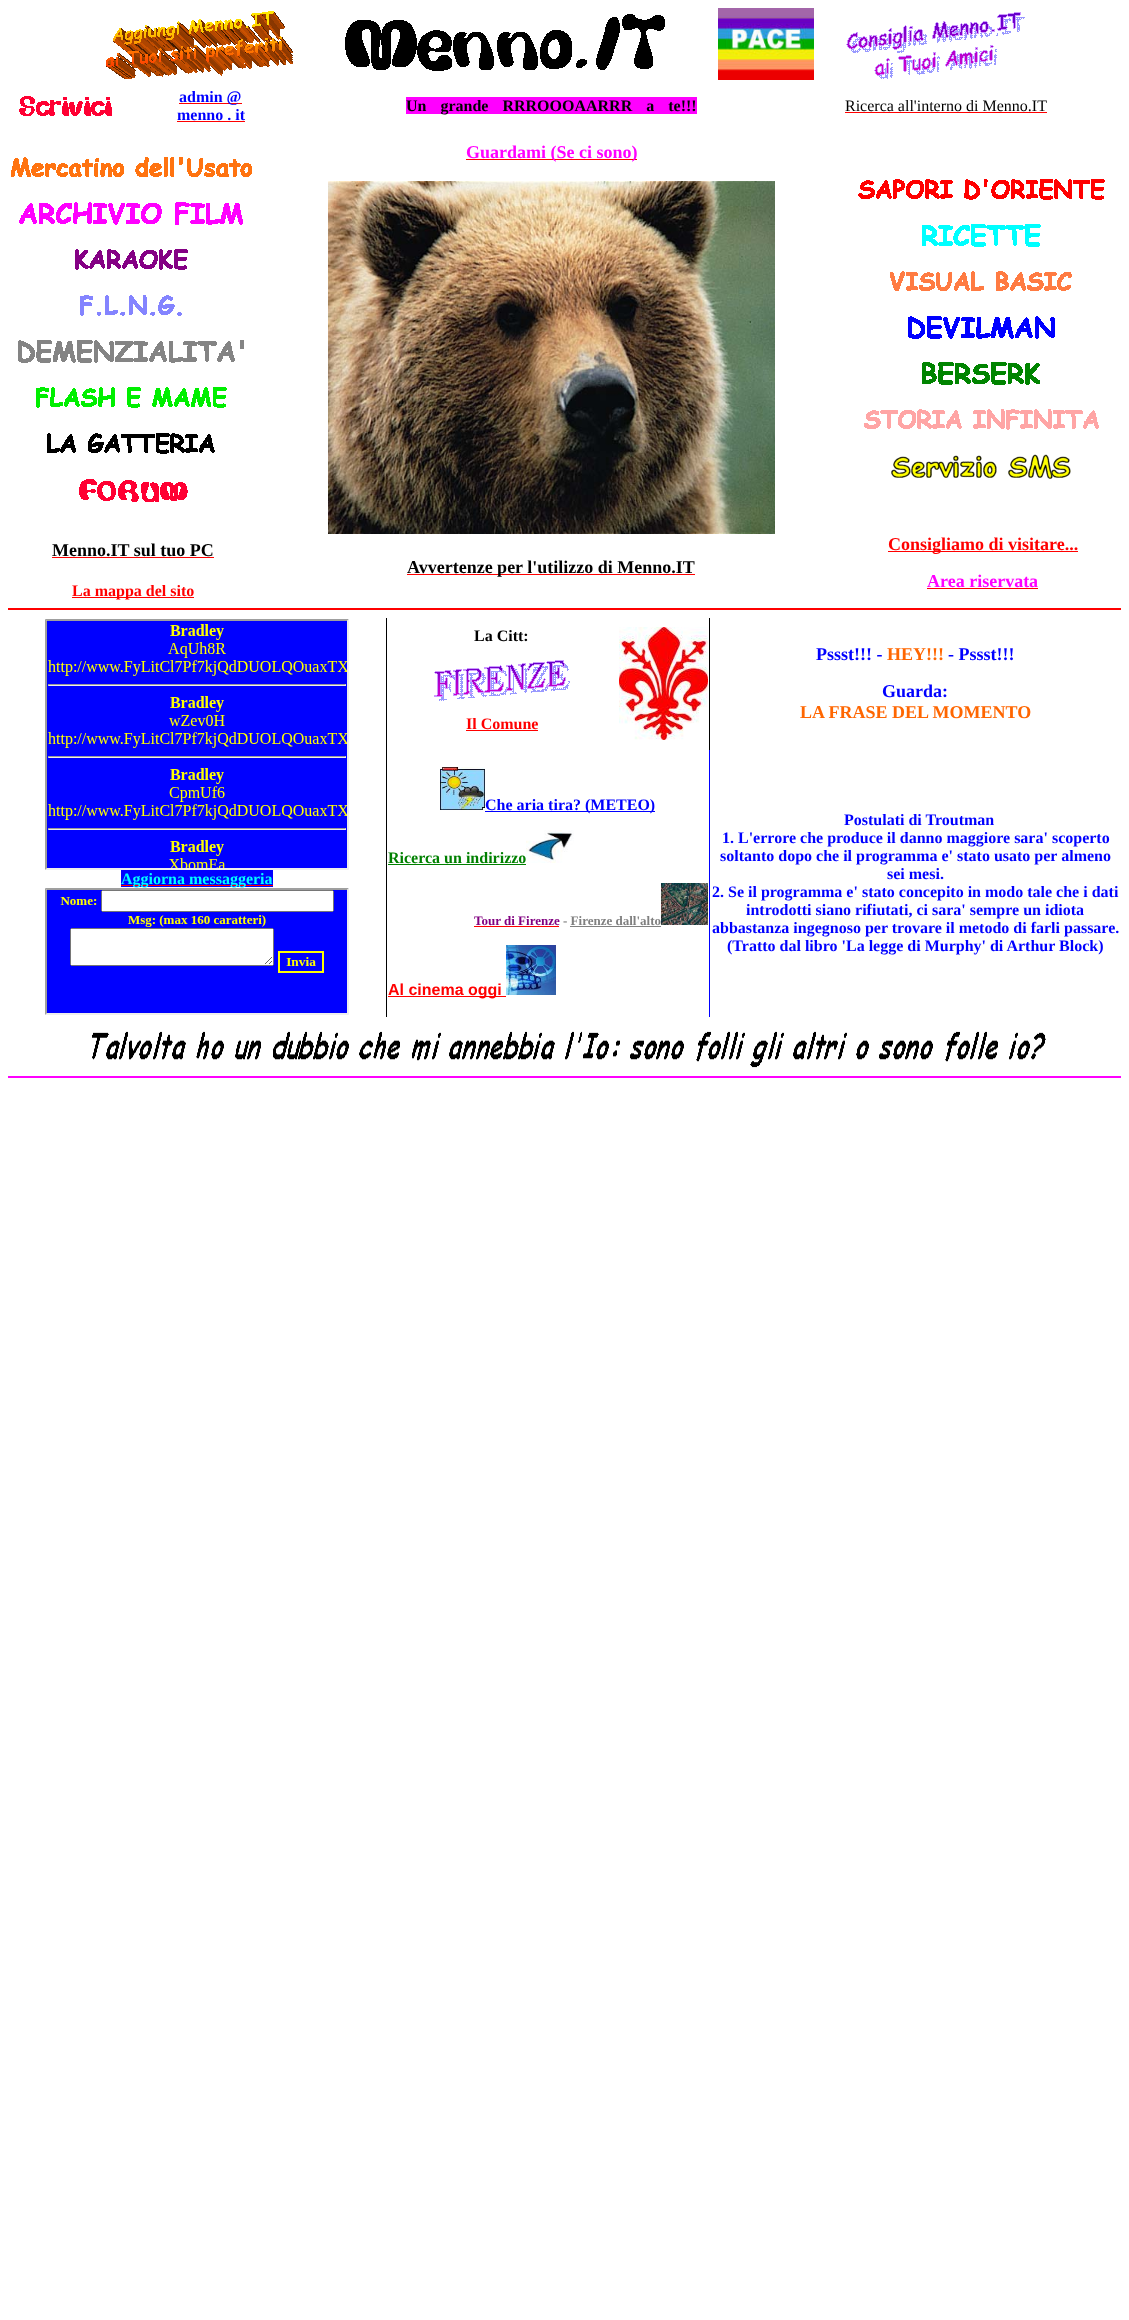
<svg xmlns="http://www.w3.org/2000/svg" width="1129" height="2320">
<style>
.a{font:bold 16px Liberation Serif;fill:#00f}
.b{font:bold 16px Liberation Serif;fill:#000}
.c{font:16px Liberation Serif;fill:#000}
.d{font:bold 18px Liberation Serif;fill:#f0f}
.e{font:bold 18px Liberation Serif;fill:#000}
.f{font:bold 16px Liberation Serif;fill:#f00}
.g{font:bold 18px Liberation Serif;fill:#f00}
.h{font:bold 18px Liberation Serif;fill:#00f}
.i{font:bold 18px Liberation Serif;fill:#f60}
.j{font:bold 16px Liberation Serif;fill:#0ff}
.k{font:bold 16px Liberation Serif;fill:#008000}
.l{font:bold 13px Liberation Serif;fill:#800080}
.m{font:bold 13px Liberation Serif;fill:#808080}
.n{font:bold 16px Liberation Sans;fill:#f00}
</style>
<rect width="100%" height="100%" fill="#fff"/>
<image href="1.png" x="106" y="11" width="187" height="68"/>
<image href="2.png" x="345" y="14" width="320" height="57"/>
<image href="3.png" x="718" y="8" width="96" height="72"/>
<image href="4.png" x="846" y="12" width="179" height="67"/>
<image href="5.png" x="19" y="96" width="93" height="20"/>
<path fill="#f00" d="M179 103h63v1H179z"/>
<path fill="#f00" d="M177 121h68v1H177z"/>
<path fill="#f0f" d="M406 97h291v17H406z"/>
<path fill="#f00" d="M845 112h202v1H845z"/>
<path fill="#f00" d="M466 159h171v1H466z"/>
<image href="6.png" x="328" y="181" width="447" height="353"/>
<image href="7.png" x="11" y="157" width="241" height="20"/>
<image href="8.png" x="19" y="202" width="224" height="23"/>
<image href="9.png" x="75" y="249" width="113" height="21"/>
<image href="10.png" x="80" y="295" width="102" height="21"/>
<image href="11.png" x="18" y="340" width="226" height="23"/>
<image href="12.png" x="36" y="387" width="191" height="21"/>
<image href="13.png" x="47" y="433" width="168" height="21"/>
<image href="14.png" x="79" y="479" width="109" height="23"/>
<image href="15.png" x="858" y="179" width="247" height="21"/>
<image href="16.png" x="922" y="224" width="119" height="23"/>
<image href="17.png" x="890" y="271" width="182" height="20"/>
<image href="18.png" x="908" y="316" width="147" height="23"/>
<image href="19.png" x="922" y="362" width="118" height="23"/>
<image href="20.png" x="864" y="409" width="235" height="21"/>
<image href="21.png" x="891" y="454" width="180" height="25"/>
<path fill="#f00" d="M52 557h162v1H52z"/>
<path fill="#f00" d="M72 597h122v1H72z"/>
<path fill="#f00" d="M407 574h288v1H407z"/>
<path fill="#f00" d="M888 551h190v1H888z"/>
<path fill="#f00" d="M927 588h111v1H927z"/>
<path fill="#f00" d="M8 608h1113v2H8z"/>
<image href="22.png" x="619" y="627" width="89" height="113"/>
<image href="23.png" x="434" y="660" width="136" height="41"/>
<path fill="#f00" d="M466 730h72v1H466z"/>
<path fill="#00f" d="M709 749h1v268H709z"/>
<path fill="#000" d="M709 618h1v132H709z"/>
<path fill="#000" d="M386 618h1v399H386z"/>
<path fill="#9f9f9f" d="M45 619h304l-2 2h-300z"/>
<path fill="#eee" d="M349 619v251l-2-2v-247z"/>
<path fill="#eee" d="M349 870h-304l2-2h300z"/>
<path fill="#9f9f9f" d="M45 870v-251l2 2v247z"/>
<image href="24.png" x="47" y="621" width="300" height="247"/>
<path fill="#00f" d="M121 870h152v17H121z"/>
<path fill="#f00" d="M121 885h152v1H121z"/>
<path fill="#9f9f9f" d="M45 888h304l-2 2h-300z"/>
<path fill="#eee" d="M349 888v127l-2-2v-123z"/>
<path fill="#eee" d="M349 1015h-304l2-2h300z"/>
<path fill="#9f9f9f" d="M45 1015v-127l2 2v123z"/>
<image href="25.png" x="47" y="890" width="300" height="123"/>
<image href="26.png" x="440" y="767" width="45" height="43"/>
<path fill="#00f" d="M485 811h170v1H485z"/>
<path fill="#008000" d="M388 864h138v1H388z"/>
<image href="27.png" x="526" y="830" width="48" height="33"/>
<path fill="#f00" d="M474 926h85v1H474z"/>
<path fill="#808080" d="M570 926h91v1H570z"/>
<image href="28.png" x="661" y="883" width="47" height="42"/>
<path fill="#f00" d="M388 996h118v1H388z"/>
<image href="29.png" x="506" y="945" width="50" height="50"/>
<image href="30.png" x="92" y="1031" width="954" height="37"/>
<path fill="#f0f" d="M8 1076h1113v2H8z"/>
<text class="a" x="179" y="102">admin @</text>
<text class="a" x="177" y="120">menno . it</text>
<text class="b" x="406" y="111" word-spacing="10">Un grande RRROOOAARRR a te!!!</text>
<text class="c" x="845" y="111">Ricerca all'interno di Menno.IT</text>
<text class="d" x="466" y="158">Guardami (Se ci sono)</text>
<text class="e" x="52" y="556">Menno.IT sul tuo PC</text>
<text class="f" x="72" y="596">La mappa del sito</text>
<text class="e" x="407" y="573">Avvertenze per l'utilizzo di Menno.IT</text>
<text class="g" x="888" y="550">Consigliamo di visitare...</text>
<text class="d" x="927" y="587">Area riservata</text>
<text class="b" x="474" y="641">La Citt:</text>
<text class="f" x="466" y="729">Il Comune</text>
<text class="h" x="816" y="660">Pssst!!! -</text>
<text class="i" x="887" y="660">HEY!!!</text>
<text class="h" x="948" y="660">- Pssst!!!</text>
<text class="h" x="882" y="697">Guarda:</text>
<text class="i" x="800" y="718">LA FRASE DEL MOMENTO</text>
<text class="j" x="121" y="884">Aggiorna messaggeria</text>
<text class="a" x="485" y="810">Che aria tira? (METEO)</text>
<text class="k" x="388" y="863">Ricerca un indirizzo</text>
<text class="l" x="474" y="925">Tour di Firenze</text>
<text class="m" x="563" y="925">- Firenze dall'alto</text>
<text class="n" x="388" y="995">Al cinema oggi</text>
<text class="a" x="844" y="825">Postulati di Troutman</text>
<text class="a" x="722" y="843">1. L'errore che produce il danno maggiore sara' scoperto</text>
<text class="a" x="720" y="861">soltanto dopo che il programma e' stato usato per almeno</text>
<text class="a" x="887" y="879">sei mesi.</text>
<text class="a" x="712" y="897">2. Se il programma e' stato concepito in modo tale che i dati</text>
<text class="a" x="746" y="915">introdotti siano rifiutati, ci sara' sempre un idiota</text>
<text class="a" x="712" y="933">abbastanza ingegnoso per trovare il metodo di farli passare.</text>
<text class="a" x="727" y="951">(Tratto dal libro 'La legge di Murphy' di Arthur Block)</text>
</svg>
